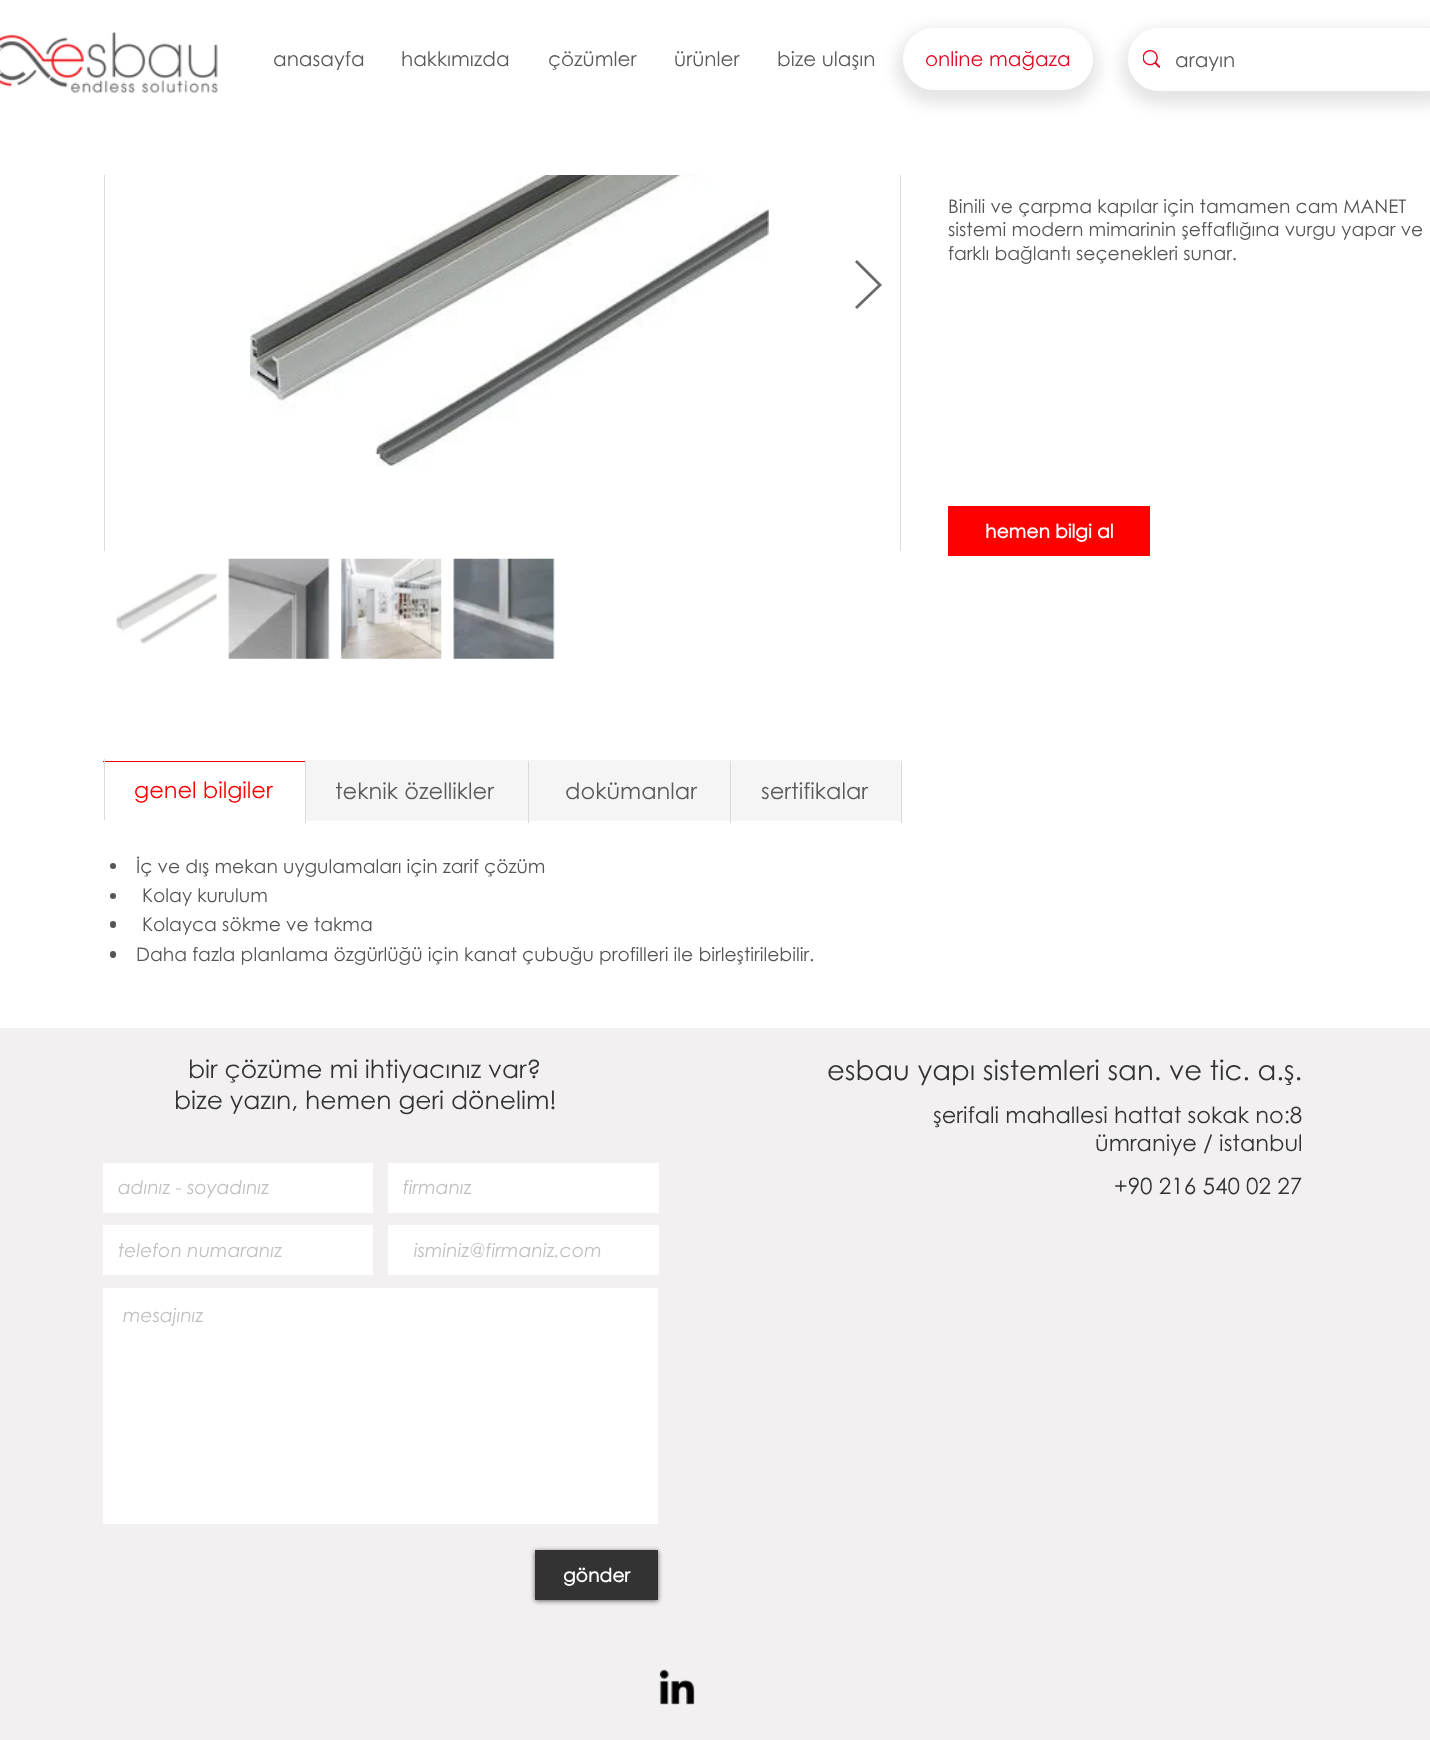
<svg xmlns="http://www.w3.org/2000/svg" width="1430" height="1740">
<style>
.a{font:20px 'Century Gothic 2';fill:#58595b}
.b{font:20px 'Century Gothic 2';fill:#e40520}
.c{font:18.75px Century Gothic;fill:#555}
.d{font:bold 18.75px Century Gothic;fill:#fff}
.e{font:22.5px 'Century Gothic 2';fill:#f00}
.f{font:22.5px 'Century Gothic 2';fill:#58595b}
.g{font:25px 'Century Gothic 2';fill:#333}
.h{font:27.5px 'Century Gothic 2';fill:#333}
.i{font:22.5px 'Century Gothic 2';fill:#333}
.j{font:italic 18.75px Century Gothic;fill:#c2bec2}
</style>
<rect width="100%" height="100%" fill="#fff"/>
<image href="1.png" x="0" y="32" width="218" height="61"/>
<rect fill="#0000001a" filter="blur(7.5px)" x="896" y="29" width="203" height="75" rx="37.5"/>
<rect fill="#fff" stroke="#fff" stroke-width="3" x="904.5" y="29.5" width="187" height="59" rx="29.5"/>
<rect fill="#0000001a" filter="blur(7.5px)" x="1121" y="29" width="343" height="76" rx="38"/>
<rect fill="#fff" x="1128" y="28" width="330" height="63" rx="31"/>
<image href="2.png" x="1143" y="50" width="17" height="18"/>
<path fill="#dbdbdb" d="M104 175h1v376H104z"/>
<image href="3.png" x="250" y="175" width="519" height="371"/>
<path fill="#696a6b" d="M855 262l2-2l25 25l-25 24l-2-2l23-22z"/>
<image href="4.png" x="116" y="573" width="101" height="72"/>
<image href="5.png" x="228" y="558" width="102" height="101"/>
<image href="6.png" x="341" y="558" width="101" height="101"/>
<image href="7.png" x="453" y="558" width="102" height="101"/>
<path fill="#dbdbdb" d="M900 175h1v376H900z"/>
<path fill="#f00" d="M948 506h202v50H948z"/>
<path fill="#f5f5f5" d="M305 760h597v61H305z"/>
<path fill="#f00" d="M103 761h203v1H103z"/>
<path fill="#dbdbdb" d="M104 759h1v61H104z"/>
<path fill="#dbdbdb" d="M305 761h1v62H305z"/>
<path fill="#dbdbdb" d="M528 761h1v62H528z"/>
<path fill="#dbdbdb" d="M730 761h1v62H730z"/>
<path fill="#dbdbdb" d="M901 761h1v62H901z"/>
<circle fill="#555" cx="113" cy="866" r="3"/>
<circle fill="#555" cx="113" cy="896" r="3"/>
<rect fill="#555" x="110" y="921" width="6" height="7" rx="3"/>
<rect fill="#555" x="110" y="951" width="6" height="7" rx="3"/>
<path fill="#f2f0f0" d="M0 1028h1430v712H0z"/>
<path fill="#fff" d="M103 1163h270v50H103z"/>
<path fill="#fff" d="M388 1163h271v50H388z"/>
<path fill="#fff" d="M103 1225h270v50H103z"/>
<path fill="#fff" d="M388 1225h271v50H388z"/>
<path fill="#fff" d="M103 1288h555v236H103z"/>
<path fill="#00000099" filter="blur(2.5px)" d="M535 1551h123v50H535z"/>
<path fill="#333" d="M535 1550h123v50H535z"/>
<image href="8.png" x="659" y="1669" width="36" height="36"/>
<text class="a" x="273" y="66">anasayfa</text>
<text class="a" x="401" y="66">hakkımızda</text>
<text class="a" x="548" y="66">çözümler</text>
<text class="a" x="674" y="66">ürünler</text>
<text class="a" x="777" y="66">bize ulaşın</text>
<text class="b" x="925" y="66">online mağaza</text>
<text class="a" x="1175" y="67">arayın</text>
<text class="c" x="948" y="213">Binili ve çarpma kapılar için tamamen cam MANET</text>
<text class="c" x="948" y="236">sistemi modern mimarinin şeffaflığına vurgu yapar ve</text>
<text class="c" x="948" y="260">farklı bağlantı seçenekleri sunar.</text>
<text class="d" x="985" y="538">hemen bilgi al</text>
<text class="e" x="134" y="798">genel bilgiler</text>
<text class="f" x="335" y="799">teknik özellikler</text>
<text class="f" x="565" y="799">dokümanlar</text>
<text class="f" x="761" y="799">sertifikalar</text>
<text class="c" x="136" y="873">İç ve dış mekan uygulamaları için zarif çözüm</text>
<text class="c" x="142" y="902">Kolay kurulum</text>
<text class="c" x="142" y="931">Kolayca sökme ve takma</text>
<text class="c" x="136" y="961">Daha fazla planlama özgürlüğü için kanat çubuğu profilleri ile birleştirilebilir.</text>
<text class="g" x="188" y="1078">bir çözüme mi ihtiyacınız var?</text>
<text class="g" x="174" y="1109">bize yazın, hemen geri dönelim!</text>
<text class="h" x="827" y="1080">esbau yapı sistemleri san. ve tic. a.ş.</text>
<text class="i" x="933" y="1123">şerifali mahallesi hattat sokak no:8</text>
<text class="i" x="1095" y="1151">ümraniye / istanbul</text>
<text class="j" x="118" y="1194">adınız - soyadınız</text>
<text class="j" x="403" y="1194">firmanız</text>
<text class="j" x="118" y="1257">telefon numaranız</text>
<text class="j" x="414" y="1257">isminiz@firmaniz.com</text>
<text class="j" x="123" y="1322">mesajınız</text>
<text class="d" x="563" y="1582">gönder</text>
<text class="i" x="1114" y="1194">+90 216 540 02 27</text>
</svg>
